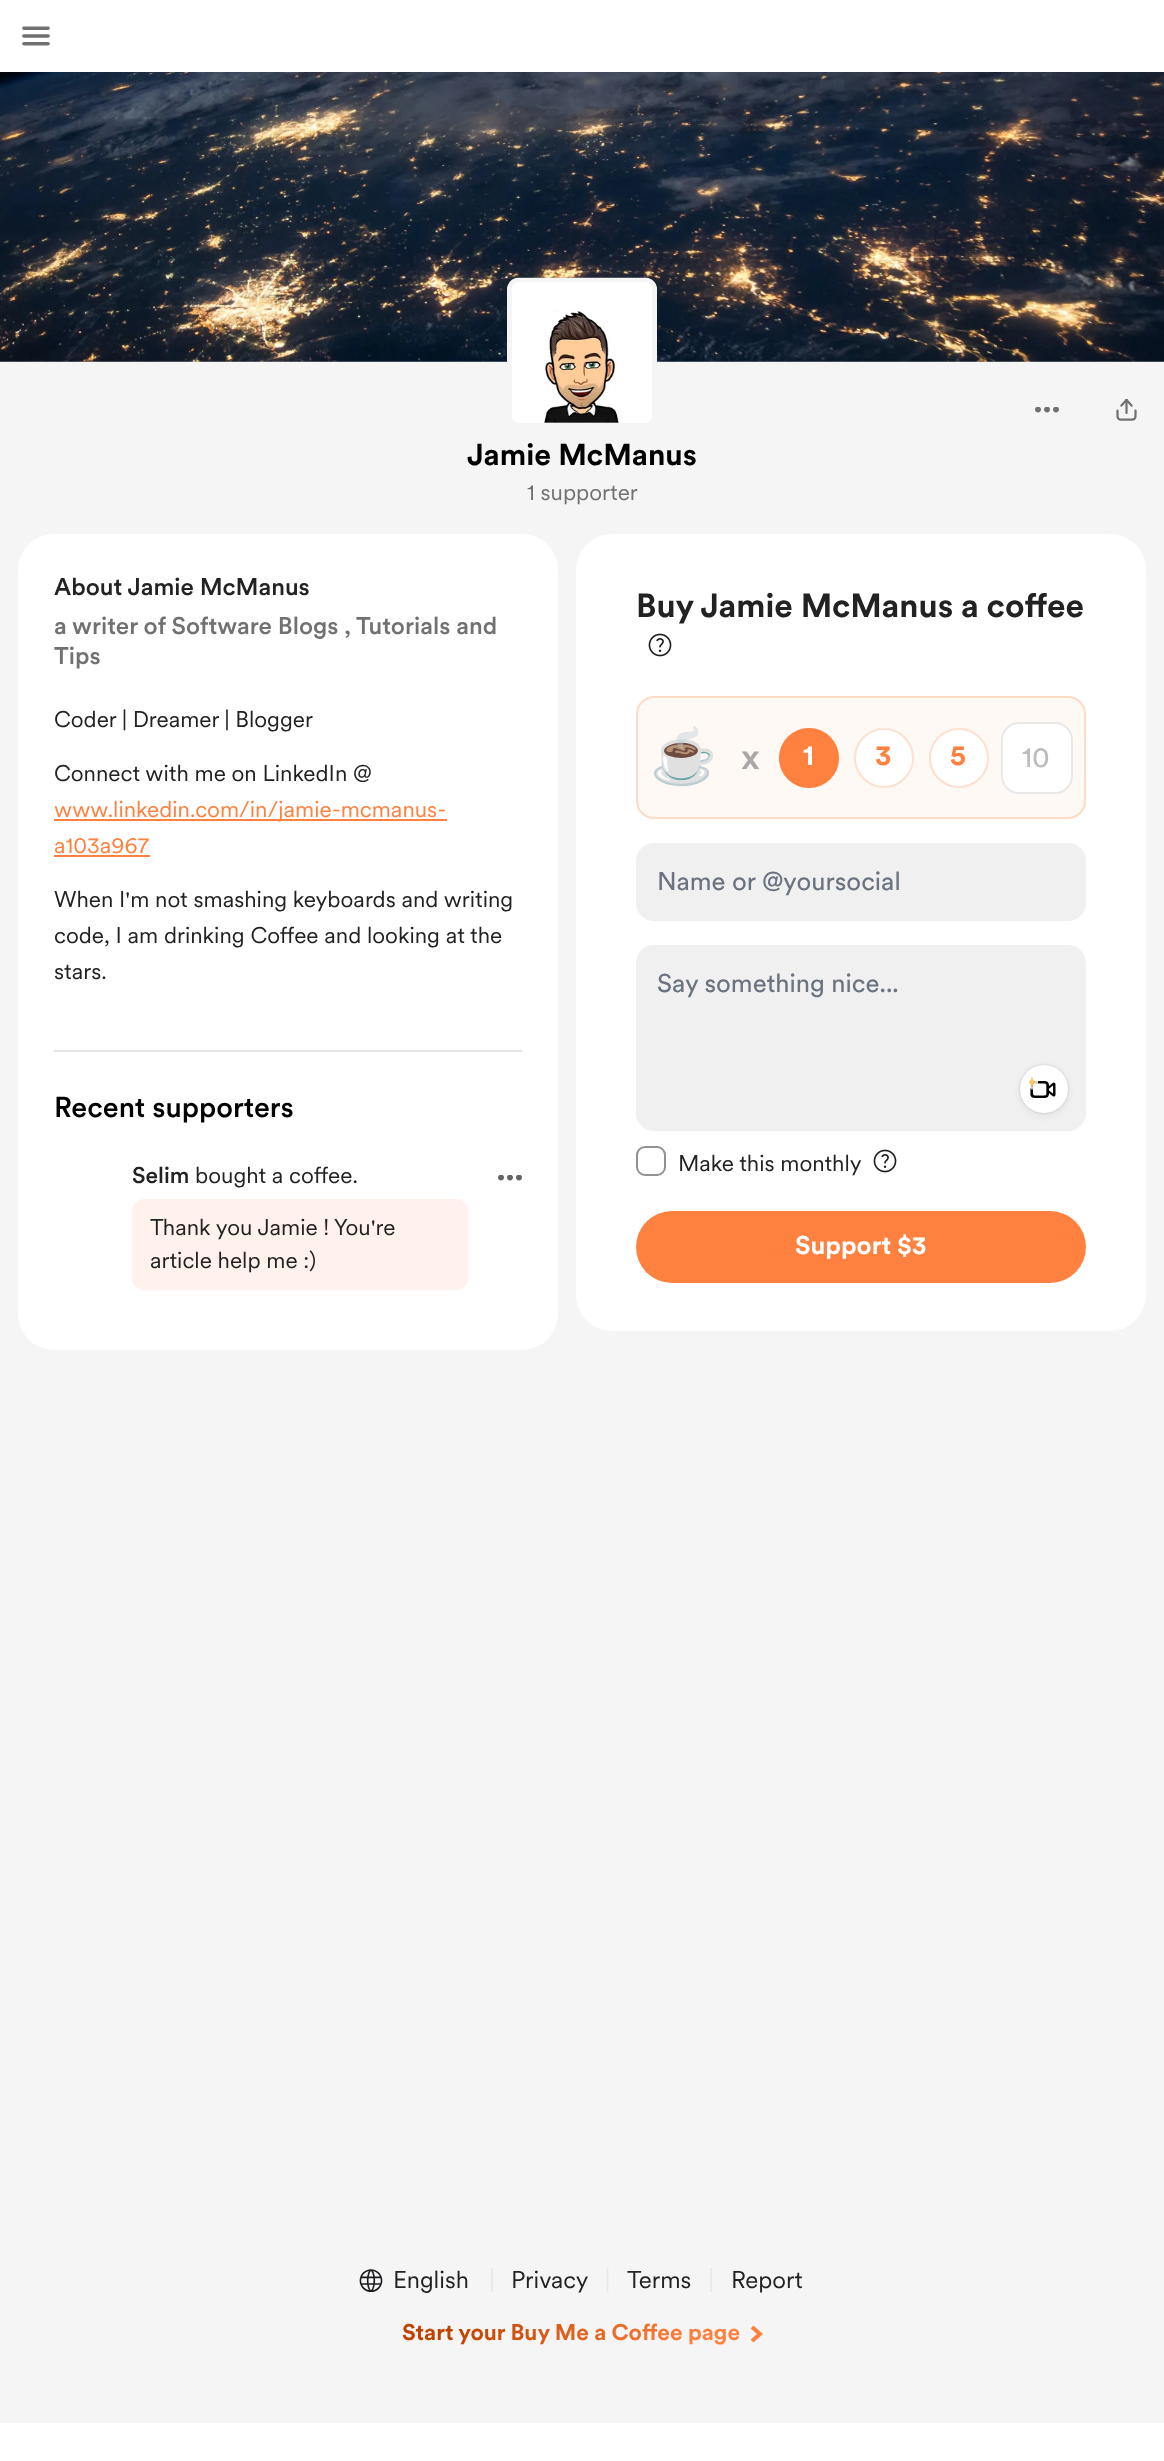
<svg xmlns="http://www.w3.org/2000/svg" width="1164" height="2461">
<style>
.a{font:bold 30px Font;fill:#000}
.b{font:22.5px 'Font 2';fill:#717171}
.c{font:500 24px Font;fill:#222}
.d{font:500 24px Font;fill:#717171}
.e{font:22.5px 'Font 2';fill:#222}
.f{font:22.5px 'Font 2';fill:#ff813f}
.g{font:500 28.5px Font;fill:#000}
.h{font:500 22.5px Font;fill:#222}
.i{font:bold 33px Font;fill:#222}
.j{font:54px Noto Color Emoji;fill:#000}
.k{font:500 36px Font;fill:#aaa7a6}
.l{font:bold 28.5px Font;fill:#fff}
.m{font:bold 28.5px Font;fill:#ff813f}
.n{font:28.5px Font;fill:#bdbdbd}
.o{font:25.5px Font;fill:#6b7280}
.p{font:bold 25.5px Font;fill:#fff}
.q{font:24px 'Font 2';fill:#222}
.r{font:bold 22.5px Font;fill:url(#g1)}
</style>
<defs>
<linearGradient id="g1" gradientUnits="userSpaceOnUse" x1="424" y1="2266" x2="740" y2="2400"><stop offset="0.14" stop-color="#bf4300"/><stop offset="0.82" stop-color="#ff813f"/></linearGradient>
</defs>
<rect width="100%" height="100%" fill="#fff"/>
<image href="1.png" x="22" y="26" width="28" height="20"/>
<path fill="#f5f5f5" d="M0 361h1164v2062H0z"/>
<image href="2.png" x="0" y="72" width="1164" height="290"/>
<image href="3.png" x="0" y="361" width="1164" height="1"/>
<image href="4.png" x="1035" y="407" width="24" height="6"/>
<image href="5.png" x="1116" y="399" width="21" height="22"/>
<image href="6.png" x="507" y="277" width="150" height="150"/>
<rect fill="none" stroke="#f5f5f5" stroke-width="5" x="509.5" y="280.5" width="145" height="145" rx="9.5"/>
<image href="7.png" x="512" y="282" width="140" height="141"/>
<rect fill="#fff" x="18" y="534" width="540" height="816" rx="36"/>
<path fill="#e4e4e4" d="M54 1050h468v2H54z"/>
<path fill="#ff813f" d="M54 819h393v2H54z"/>
<path fill="#ff813f" d="M54 855h96v2H54z"/>
<rect fill="#fff2ec" x="132" y="1199" width="336" height="91" rx="12"/>
<image href="8.png" x="498" y="1175" width="24" height="6"/>
<rect fill="#fff" x="576" y="534" width="570" height="797" rx="36"/>
<image href="9.png" x="648" y="633" width="24" height="24"/>
<rect fill="#fff9f5" x="636" y="696" width="450" height="123" rx="18"/>
<rect fill="none" stroke="#ff813f40" stroke-width="2" x="637" y="697" width="448" height="121" rx="17"/>
<circle fill="#ff813f" cx="809" cy="758" r="30"/>
<circle fill="none" stroke="#ff813f40" stroke-width="2" cx="809" cy="758" r="29"/>
<circle fill="#fff" cx="884" cy="758" r="30"/>
<circle fill="none" stroke="#ff813f40" stroke-width="2" cx="884" cy="758" r="29"/>
<circle fill="#fff" cx="959" cy="758" r="30"/>
<circle fill="none" stroke="#ff813f40" stroke-width="2" cx="959" cy="758" r="29"/>
<rect fill="#fff" x="1001" y="722" width="72" height="72" rx="18"/>
<rect fill="none" stroke="#2222221a" stroke-width="2" x="1002" y="723" width="70" height="70" rx="17"/>
<rect fill="#f0f0f0" x="636" y="843" width="450" height="78" rx="18"/>
<rect fill="#f0f0f0" x="636" y="945" width="450" height="186" rx="18"/>
<rect fill="#0000000d" filter="blur(4px)" x="1020" y="1068" width="48" height="48" rx="24"/>
<rect fill="#00000026" filter="blur(1.5px)" x="1020" y="1065" width="48" height="48" rx="24"/>
<circle fill="#fff" cx="1044" cy="1089" r="24"/>
<image href="11.png" x="1030" y="1081" width="26" height="17"/>
<image href="10.png" x="1029" y="1077" width="9" height="13"/>
<rect fill="none" stroke="#919191" stroke-width="2" x="637" y="1147" width="28" height="28" rx="8"/>
<image href="9.png" x="873" y="1149" width="24" height="24"/>
<rect fill="#ff813f" x="636" y="1211" width="450" height="72" rx="36"/>
<image href="12.png" x="359" y="2269" width="24" height="23"/>
<path fill="#eaeaea" d="M491 2268h2v24H491z"/>
<path fill="none" stroke="#e7e7e7" stroke-width="1.5" d="M607.5 2268v24"/>
<path fill="#eaeaea" d="M710 2268h2v24H710z"/>
<path fill="none" stroke="#ff813f" stroke-width="4" d="M752 2327l8 7l-8 7"/>
<text class="a" x="467" y="465">Jamie McManus</text>
<text class="b" x="527" y="500">1 supporter</text>
<text class="c" x="54" y="595">About Jamie McManus</text>
<text class="d" x="54" y="634">a writer of Software Blogs , Tutorials and</text>
<text class="d" x="54" y="664">Tips</text>
<text class="e" x="54" y="727">Coder | Dreamer | Blogger</text>
<text class="e" x="54" y="781">Connect with me on LinkedIn @</text>
<text class="f" x="54" y="817">www.linkedin.com/in/jamie-mcmanus-</text>
<text class="f" x="54" y="853">a103a967</text>
<text class="e" x="54" y="907">When I'm not smashing keyboards and writing</text>
<text class="e" x="54" y="943">code, I am drinking Coffee and looking at the</text>
<text class="e" x="54" y="979">stars.</text>
<text class="g" x="54" y="1117">Recent supporters</text>
<text class="h" x="132" y="1183">Selim</text>
<text class="e" x="195" y="1183">bought a coffee.</text>
<text class="e" x="150" y="1235">Thank you Jamie ! You're</text>
<text class="e" x="150" y="1268">article help me :)</text>
<text class="i" x="636" y="617">Buy Jamie McManus a coffee</text>
<text class="j" x="650" y="775">☕</text>
<text class="k" x="741" y="769">x</text>
<text class="l" x="803" y="765">1</text>
<text class="m" x="875" y="765">3</text>
<text class="m" x="950" y="765">5</text>
<text class="n" x="1022" y="767">10</text>
<text class="o" x="657" y="890">Name or @yoursocial</text>
<text class="o" x="657" y="992">Say something nice...</text>
<text class="e" x="678" y="1171">Make this monthly</text>
<text class="p" x="795" y="1254">Support $3</text>
<text class="q" x="393" y="2288">English</text>
<text class="q" x="511" y="2288">Privacy</text>
<text class="q" x="627" y="2288">Terms</text>
<text class="q" x="731" y="2288">Report</text>
<text class="r" x="402" y="2340">Start your Buy Me a Coffee page</text>
</svg>
